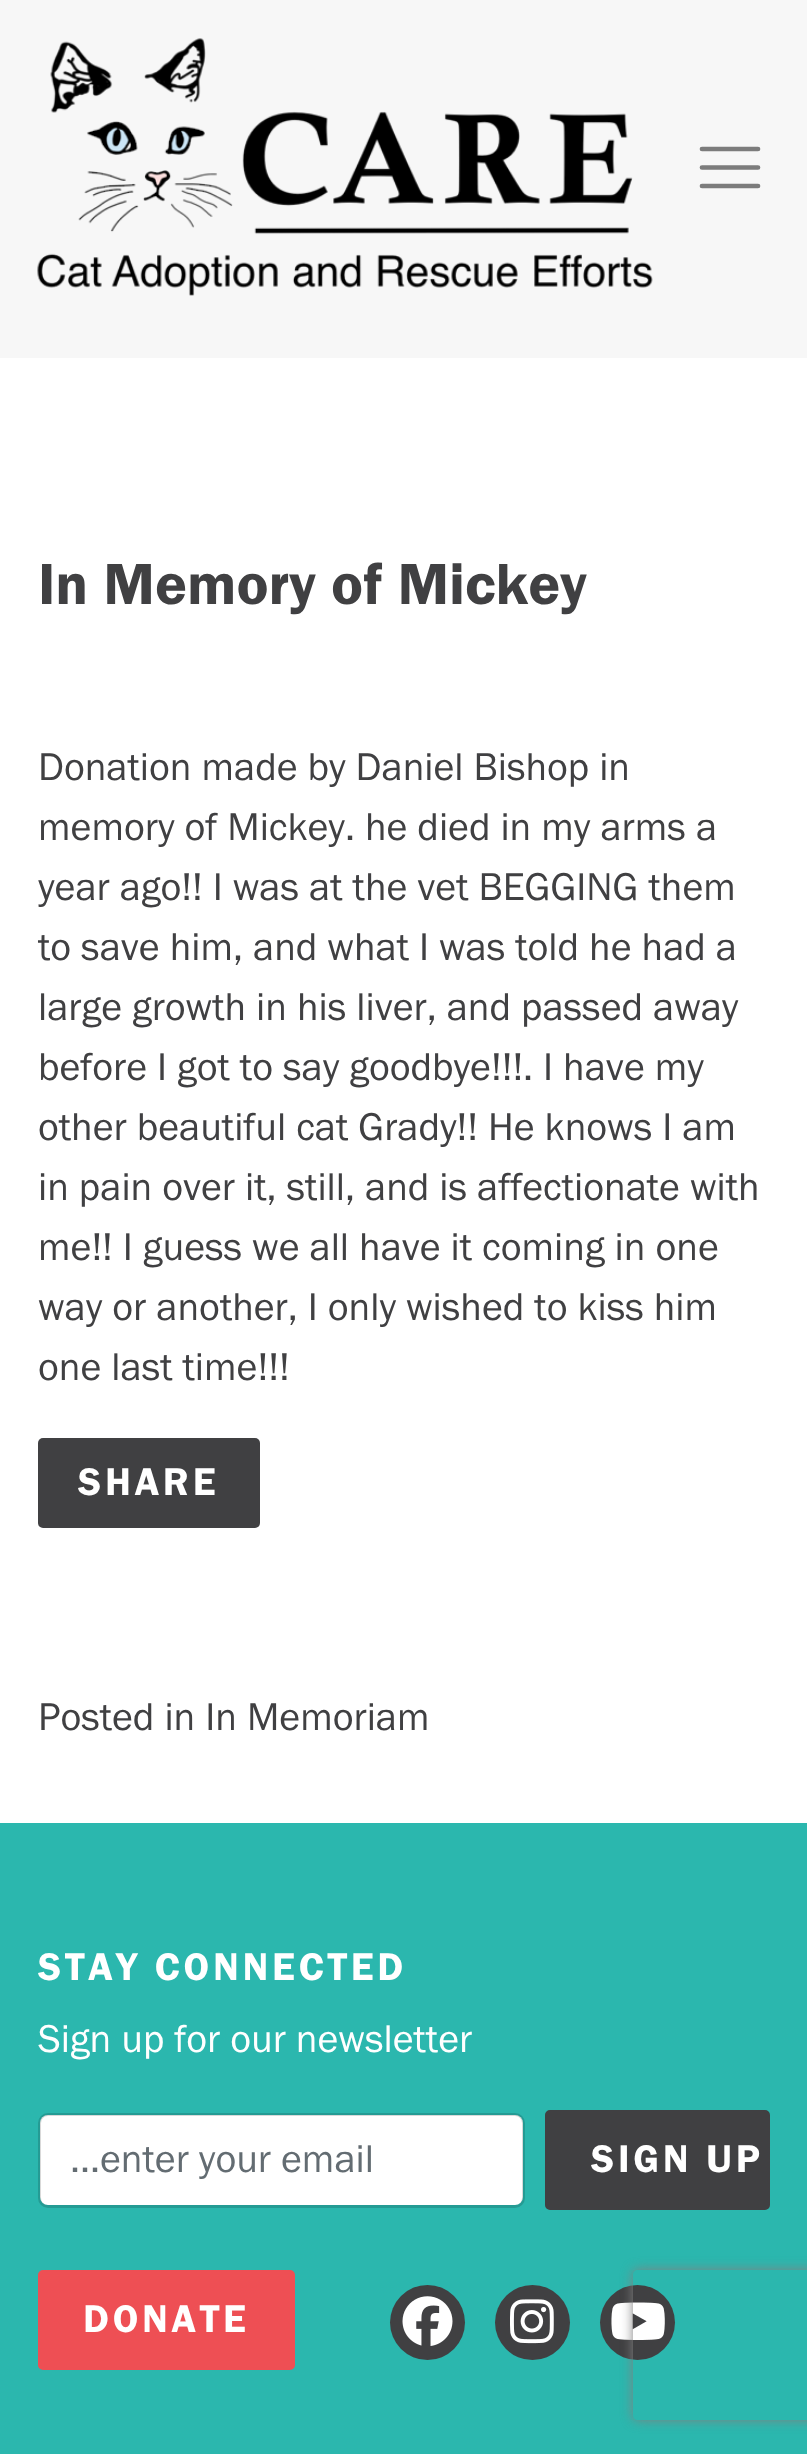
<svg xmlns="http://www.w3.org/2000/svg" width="807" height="2454">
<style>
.a{font:60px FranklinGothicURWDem;fill:#404042}
.b{font:40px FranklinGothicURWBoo;fill:#404042}
.c{font:40px FranklinGothicURWDem;letter-spacing:3.75px;fill:#fff}
.d{font:40px FranklinGothicURWBoo;fill:#fff}
.e{font:40px FranklinGothicURWBoo;fill:#636c72}
</style>
<defs>
<clipPath id="clip1"><path d="M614 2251h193v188h-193zm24 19h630c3 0 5 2 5 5v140c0 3-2 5-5 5h-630c-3 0-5-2-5-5v-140c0-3 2-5 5-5z" clip-rule="evenodd"/></clipPath>
</defs>
<rect width="100%" height="100%" fill="#fff"/>
<path fill="#f7f7f7" d="M0 0h807v358H0z"/>
<image href="1.png" x="37" y="38" width="616" height="258"/>
<path fill="none" stroke="#7c7c7c" stroke-width="4.7" stroke-linecap="round" d="M702 149h56m-56 18.5h56m-56 18.5h56"/>
<rect fill="#404042" x="38" y="1438" width="222" height="90" rx="5"/>
<path fill="#2bb7ae" d="M0 1823h807v631H0z"/>
<rect fill="#fff" x="40" y="2115" width="483" height="90" rx="8"/>
<rect fill="none" stroke="#00000026" stroke-width="3" x="39.5" y="2114.5" width="484" height="92" rx="8.5"/>
<rect fill="#404042" stroke="#404042" stroke-width="5" x="547.5" y="2112.5" width="220" height="95" rx="2.5"/>
<rect fill="#ee4f54" stroke="#ee4f54" stroke-width="5" x="40.5" y="2272.5" width="252" height="95" rx="2.5"/>
<circle fill="#404042" cx="427.5" cy="2322.5" r="37.5"/>
<image href="2.png" x="402" y="2296" width="51" height="50"/>
<circle fill="#404042" cx="532.5" cy="2322.5" r="37.5"/>
<image href="3.png" x="510" y="2299" width="44" height="45"/>
<circle fill="#404042" cx="637.5" cy="2322.5" r="37.5"/>
<image href="4.png" x="611" y="2302" width="54" height="38"/>
<g clip-path="url(#clip1)">
<rect fill="#808080" filter="blur(6px)" x="633" y="2270" width="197" height="150" rx="5"/>
</g>
<text class="a" x="38" y="604">In Memory of Mickey</text>
<text class="b" x="38" y="780">Donation made by Daniel Bishop in</text>
<text class="b" x="38" y="840">memory of Mickey. he died in my arms a</text>
<text class="b" x="38" y="900">year ago!! I was at the vet BEGGING them</text>
<text class="b" x="38" y="960">to save him, and what I was told he had a</text>
<text class="b" x="38" y="1020">large growth in his liver, and passed away</text>
<text class="b" x="38" y="1080">before I got to say goodbye!!!. I have my</text>
<text class="b" x="38" y="1140">other beautiful cat Grady!! He knows I am</text>
<text class="b" x="38" y="1200">in pain over it, still, and is affectionate with</text>
<text class="b" x="38" y="1260">me!! I guess we all have it coming in one</text>
<text class="b" x="38" y="1320">way or another, I only wished to kiss him</text>
<text class="b" x="38" y="1380">one last time!!!</text>
<text class="c" x="78" y="1495">SHARE</text>
<text class="b" x="38" y="1730">Posted in In Memoriam</text>
<text class="c" x="38" y="1980">STAY CONNECTED</text>
<text class="d" x="38" y="2052">Sign up for our newsletter</text>
<text class="e" x="70" y="2172">...enter your email</text>
<text class="c" x="591" y="2172">SIGN UP</text>
<text class="c" x="83" y="2332">DONATE</text>
</svg>
